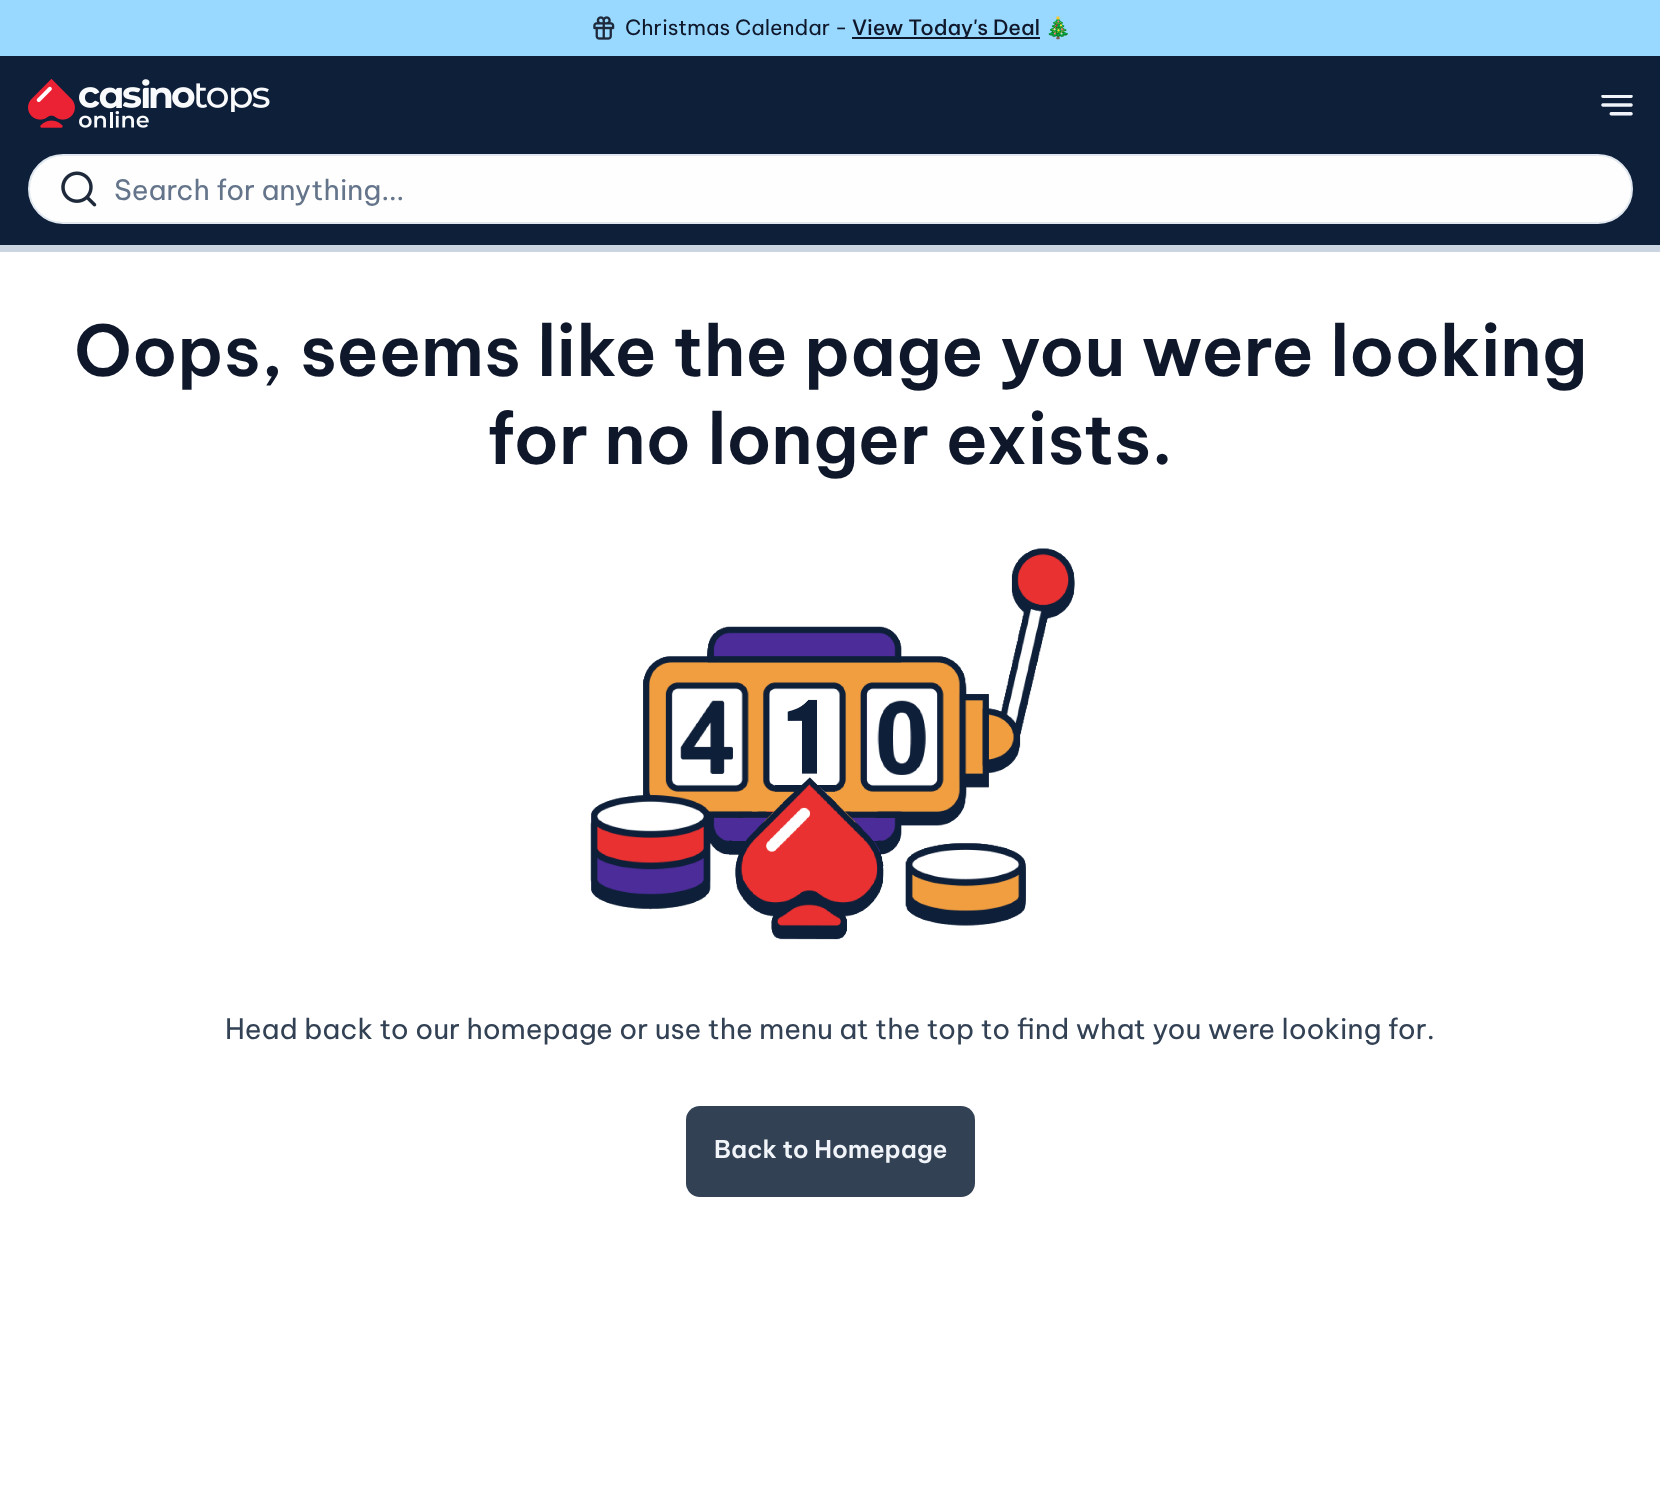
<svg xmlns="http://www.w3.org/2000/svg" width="1660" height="1512">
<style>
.a{font:21px Be Vietnam Pro;fill:#0f172a}
.b{font:500 21px Be Vietnam Pro;fill:#0f172a}
.c{font:21px Noto Color Emoji;fill:#0f172a}
.d{font:28px Be Vietnam Pro;fill:#64748b}
.e{font:600 70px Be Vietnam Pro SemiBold;fill:#0f172a}
.f{font:28px Be Vietnam Pro;fill:#334155}
.g{font:600 24.5px Be Vietnam Pro SemiBold;fill:#f1f5f9}
</style>
<rect width="100%" height="100%" fill="#fff"/>
<path fill="#99d8ff" d="M0 0h1660v56H0z"/>
<image href="1.png" x="593" y="16" width="22" height="24"/>
<path fill="#0f172a" d="M852 37h188v2H852z"/>
<path fill="#0e1f39" d="M0 56h1660v189H0z"/>
<image href="2.png" x="28" y="79" width="242" height="49"/>
<image href="3.png" x="1601" y="95" width="32" height="21"/>
<rect fill="#fdfefd" stroke="#e2e8f0" stroke-width="2" x="29" y="155" width="1603" height="68" rx="34"/>
<image href="4.png" x="61" y="171" width="36" height="36"/>
<path fill="#cbd5e1" d="M0 245h1660v7H0z"/>
<image href="5.png" x="590" y="548" width="485" height="392"/>
<rect fill="#334155" x="686" y="1106" width="289" height="91" rx="14"/>
<text class="a" x="625" y="35">Christmas Calendar -</text>
<text class="b" x="852" y="35">View Today's Deal</text>
<text class="c" x="1045" y="35">🎄</text>
<text class="d" x="114" y="200">Search for anything...</text>
<text class="e" x="74" y="376">Oops, seems like the page you were looking</text>
<text class="e" x="487" y="464">for no longer exists.</text>
<text class="f" x="225" y="1039">Head back to our homepage or use the menu at the top to find what you were looking for.</text>
<text class="g" x="714" y="1158">Back to Homepage</text>
</svg>
